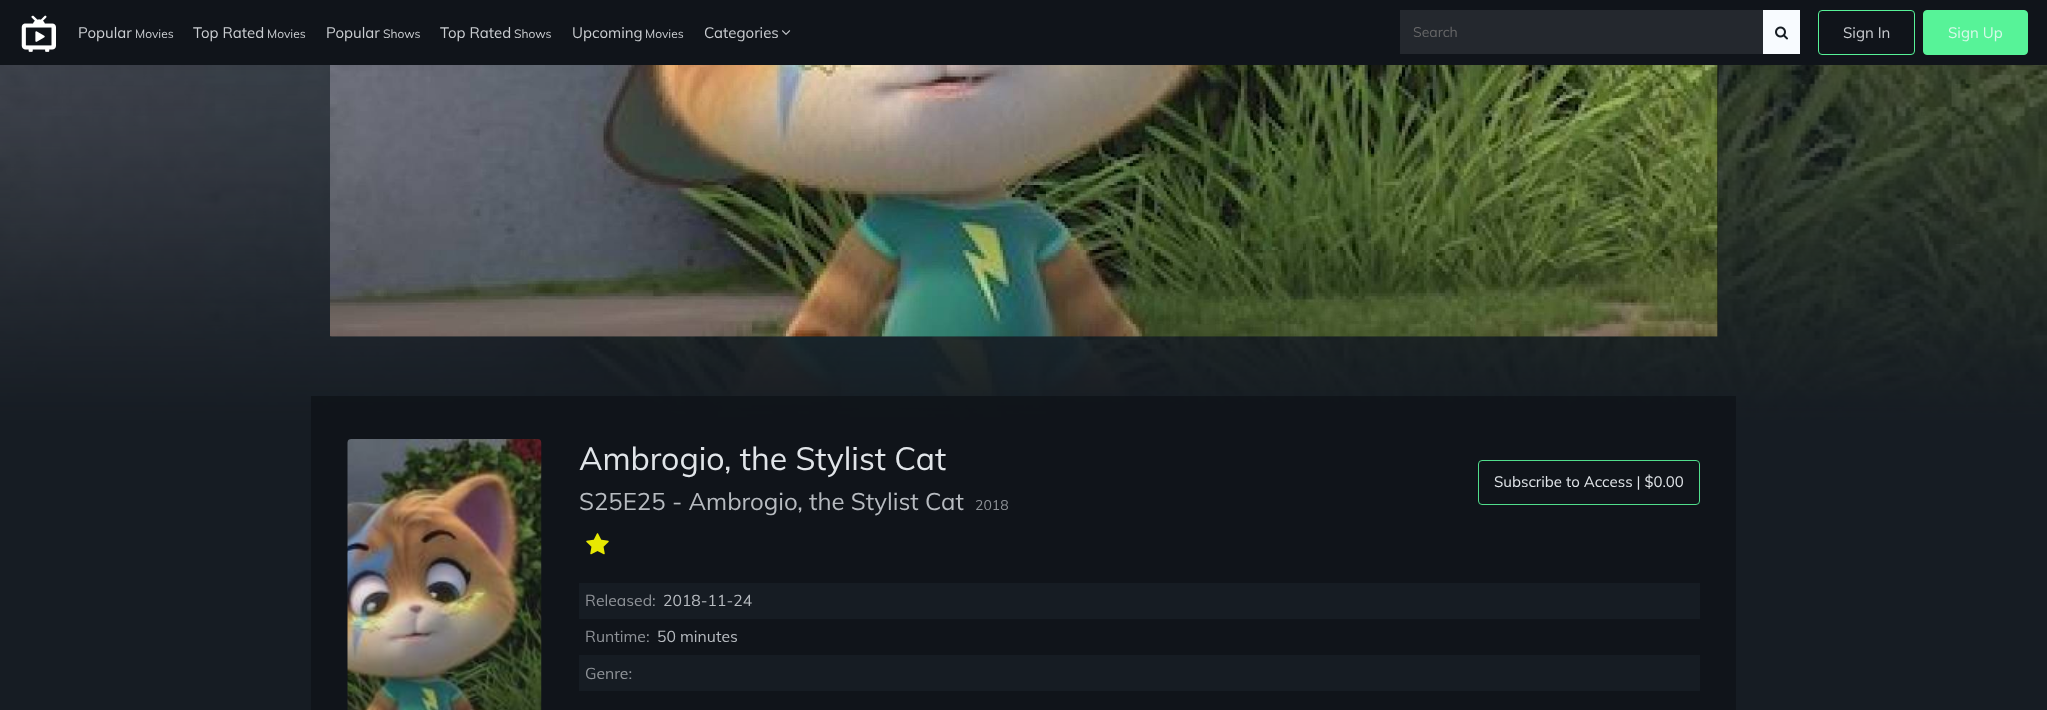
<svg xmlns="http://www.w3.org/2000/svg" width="2047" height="710">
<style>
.a{font:15px Muli;fill:#cacdd1}
.b{font:12px Muli;fill:#cacdd1}
.c{font:14px Muli;fill:#666667}
.d{font:15px Muli;fill:#d8f9ea}
.e{font:32px Muli;fill:#e1e5e9}
.f{font:24px Muli;fill:#b7bbc0}
.g{font:14px Muli;fill:#8e9297}
.h{font:15px Muli;fill:#e1e5e9}
.i{font:15.75px Muli;fill:#8e9297}
.j{font:15.75px Muli;fill:#b7bbc0}
</style>
<rect width="100%" height="100%" fill="#161c23"/>
<path fill="#10141a" d="M0 0h2047v65H0z"/>
<image href="1.png" x="21" y="15" width="35" height="37"/>
<image href="2.png" x="782" y="30" width="9" height="5"/>
<path fill="#24282e" d="M1400 10h363v44H1400z"/>
<path fill="#f8fbff" d="M1763 10h37v44H1763z"/>
<image href="3.png" x="1775" y="26" width="13" height="14"/>
<rect fill="none" stroke="#57f398" x="1818.5" y="10.5" width="96" height="44" rx="3.5"/>
<rect fill="#57f398" stroke="#57f398" x="1923.5" y="10.5" width="104" height="44" rx="3.5"/>
<image href="4.png" x="0" y="65" width="2047" height="359"/>
<path fill="#06080acc" d="M1717 65h1v271H1717z"/>
<image href="5.png" x="330" y="65" width="1388" height="272"/>
<image href="6.png" x="331" y="65" width="1387" height="272"/>
<path fill="#10141ae6" d="M311 396h1425v314H311z"/>
<image href="7.png" x="347" y="439" width="195" height="271"/>
<rect fill="none" stroke="#51de8c" x="1478.5" y="460.5" width="221" height="44" rx="3.5"/>
<image href="8.png" x="586" y="533" width="23" height="22"/>
<path fill="#161c23" d="M579 583h1121v36H579z"/>
<path fill="#161c23" d="M579 655h1121v36H579z"/>
<text class="a" x="78" y="38">Popular</text>
<text class="b" x="135" y="38">Movies</text>
<text class="a" x="193" y="38">Top Rated</text>
<text class="b" x="267" y="38">Movies</text>
<text class="a" x="326" y="38">Popular</text>
<text class="b" x="383" y="38">Shows</text>
<text class="a" x="440" y="38">Top Rated</text>
<text class="b" x="514" y="38">Shows</text>
<text class="a" x="572" y="38">Upcoming</text>
<text class="b" x="645" y="38">Movies</text>
<text class="a" x="704" y="38">Categories</text>
<text class="c" x="1413" y="37">Search</text>
<text class="a" x="1843" y="38">Sign In</text>
<text class="d" x="1948" y="38">Sign Up</text>
<text class="e" x="579" y="470">Ambrogio, the Stylist Cat</text>
<text class="f" x="579" y="510">S25E25 - Ambrogio, the Stylist Cat</text>
<text class="g" x="975" y="510">2018</text>
<text class="h" x="1494" y="487">Subscribe to Access | $0.00</text>
<text class="i" x="585" y="606">Released:</text>
<text class="j" x="663" y="606">2018-11-24</text>
<text class="i" x="585" y="642">Runtime:</text>
<text class="j" x="657" y="642">50 minutes</text>
<text class="i" x="585" y="679">Genre:</text>
</svg>
